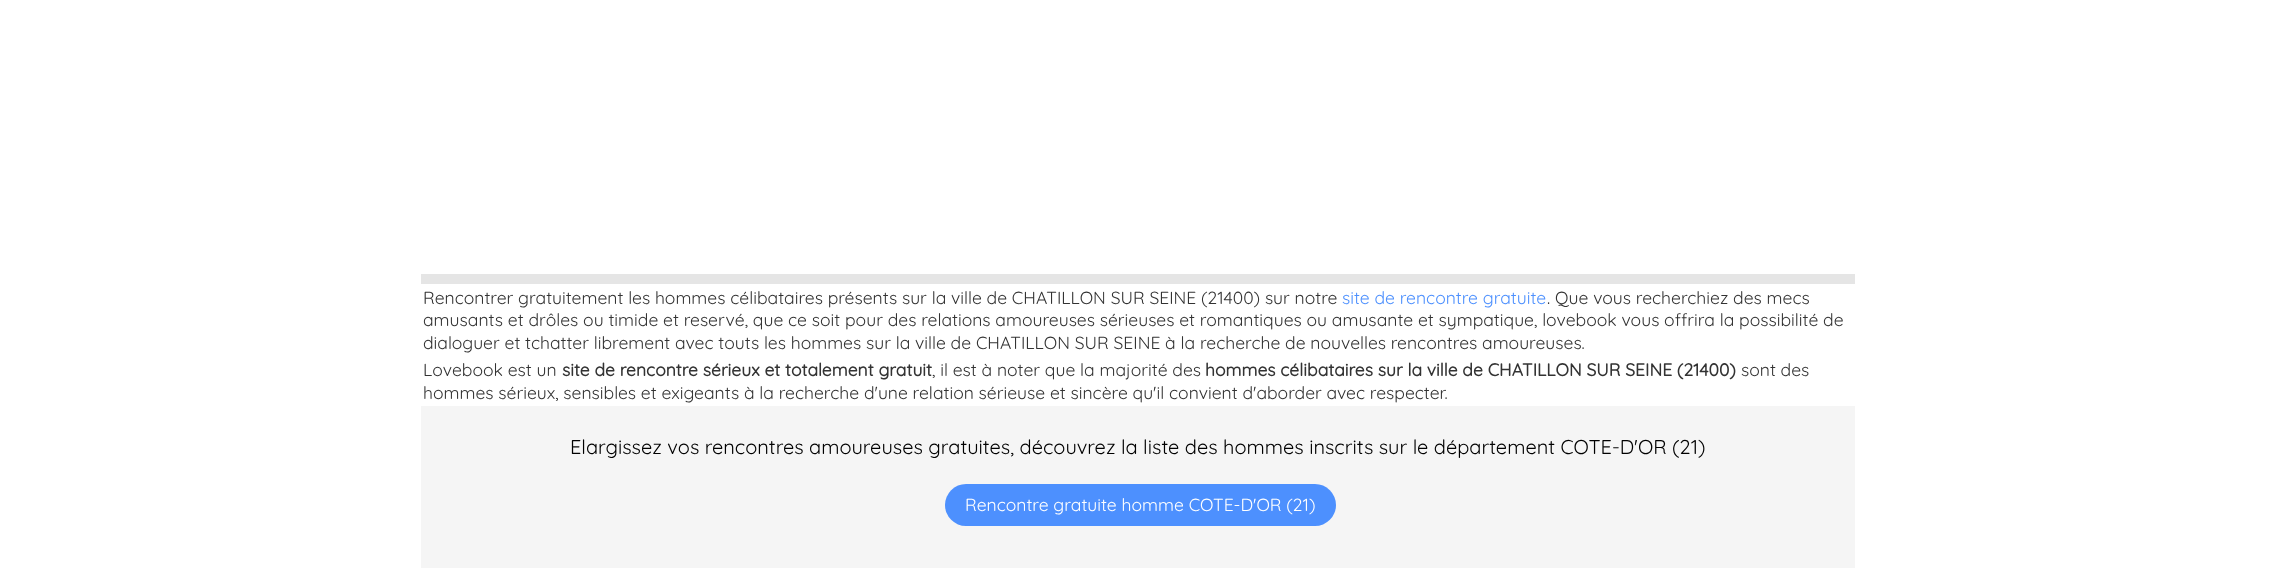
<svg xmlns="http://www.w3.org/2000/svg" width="2275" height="568">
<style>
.a{font:300 17.5px Quicksand;fill:#333}
.b{font:300 17.5px Quicksand;fill:#4d90fe}
.c{font:bold 17.5px Quicksand;fill:#333}
.d{font:300 20px Quicksand;fill:#000}
.e{font:300 17.5px Quicksand;fill:#fff}
</style>
<rect width="100%" height="100%" fill="#fff"/>
<path fill="#e5e5e5" d="M421 274h1434v10H421z"/>
<path fill="#f5f5f5" d="M421 406h1434v162H421z"/>
<rect fill="#4d90fe" x="945" y="484" width="391" height="42" rx="21"/>
<text class="a" x="423" y="304">Rencontrer gratuitement les hommes célibataires présents sur la ville de CHATILLON SUR SEINE (21400) sur notre</text>
<text class="b" x="1342" y="304">site de rencontre gratuite</text>
<text class="a" x="1547" y="304">. Que vous recherchiez des mecs</text>
<text class="a" x="423" y="326">amusants et drôles ou timide et reservé, que ce soit pour des relations amoureuses sérieuses et romantiques ou amusante et sympatique, lovebook vous offrira la possibilité de</text>
<text class="a" x="423" y="349">dialoguer et tchatter librement avec touts les hommes sur la ville de CHATILLON SUR SEINE à la recherche de nouvelles rencontres amoureuses.</text>
<text class="a" x="423" y="376">Lovebook est un</text>
<text class="c" x="562" y="376">site de rencontre sérieux et totalement gratuit</text>
<text class="a" x="932" y="376">, il est à noter que la majorité des</text>
<text class="c" x="1205" y="376">hommes célibataires sur la ville de CHATILLON SUR SEINE (21400)</text>
<text class="a" x="1741" y="376">sont des</text>
<text class="a" x="423" y="399">hommes sérieux, sensibles et exigeants à la recherche d'une relation sérieuse et sincère qu'il convient d'aborder avec respecter.</text>
<text class="d" x="570" y="454">Elargissez vos rencontres amoureuses gratuites, découvrez la liste des hommes inscrits sur le département COTE-D'OR (21)</text>
<text class="e" x="965" y="511">Rencontre gratuite homme COTE-D'OR (21)</text>
</svg>
